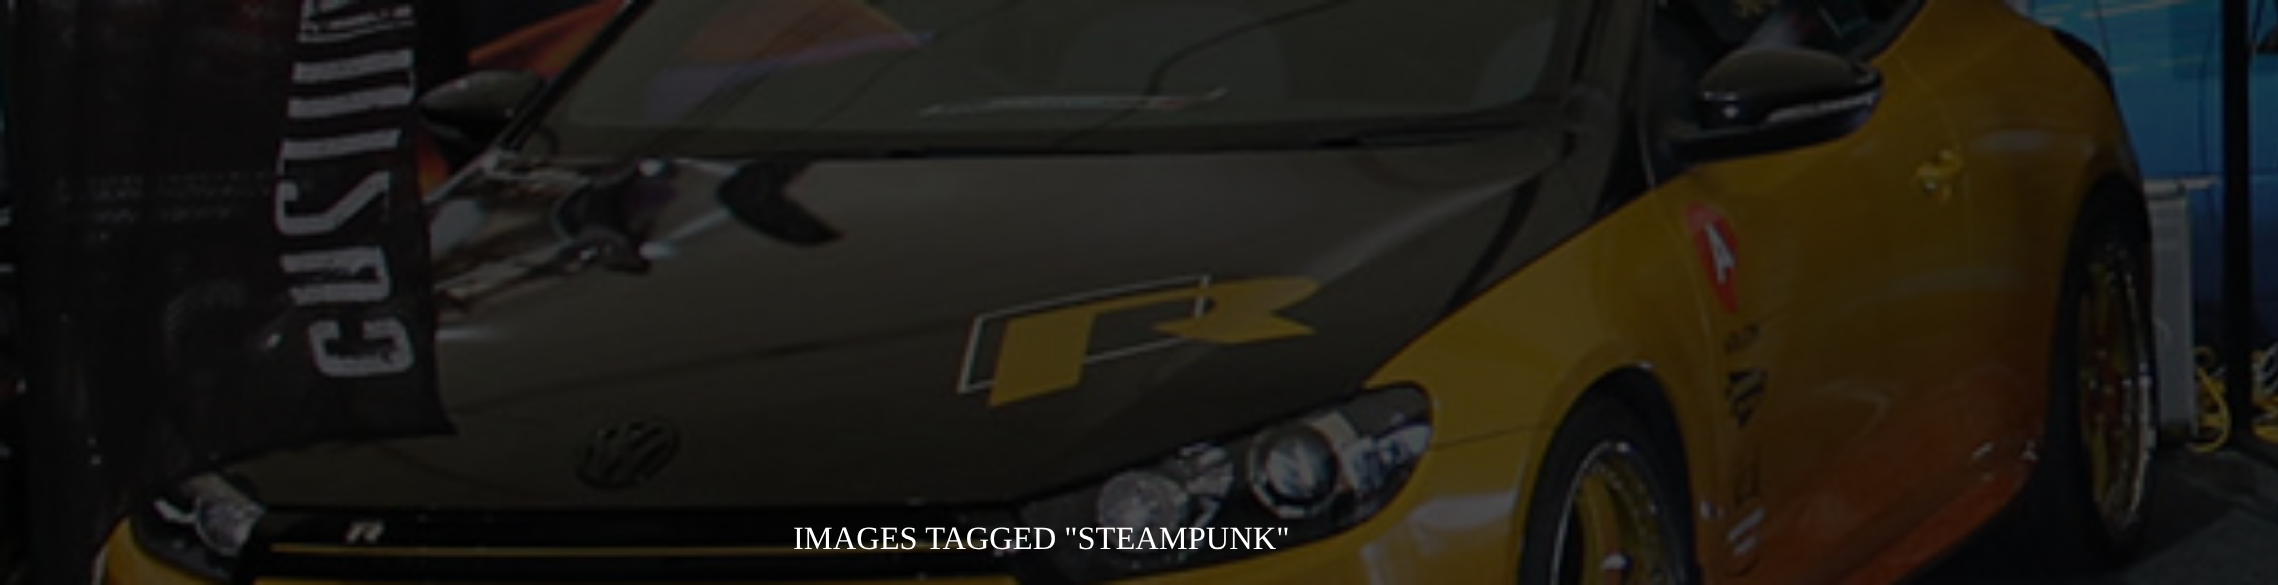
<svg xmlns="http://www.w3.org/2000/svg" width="2278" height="585">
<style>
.a{font:32.5px Liberation Serif;fill:#fff}
</style>
<rect width="100%" height="100%" fill="#fff"/>
<image href="1.png" x="0" y="0" width="2278" height="585"/>
<text class="a" x="793" y="549">IMAGES TAGGED "STEAMPUNK"</text>
</svg>
